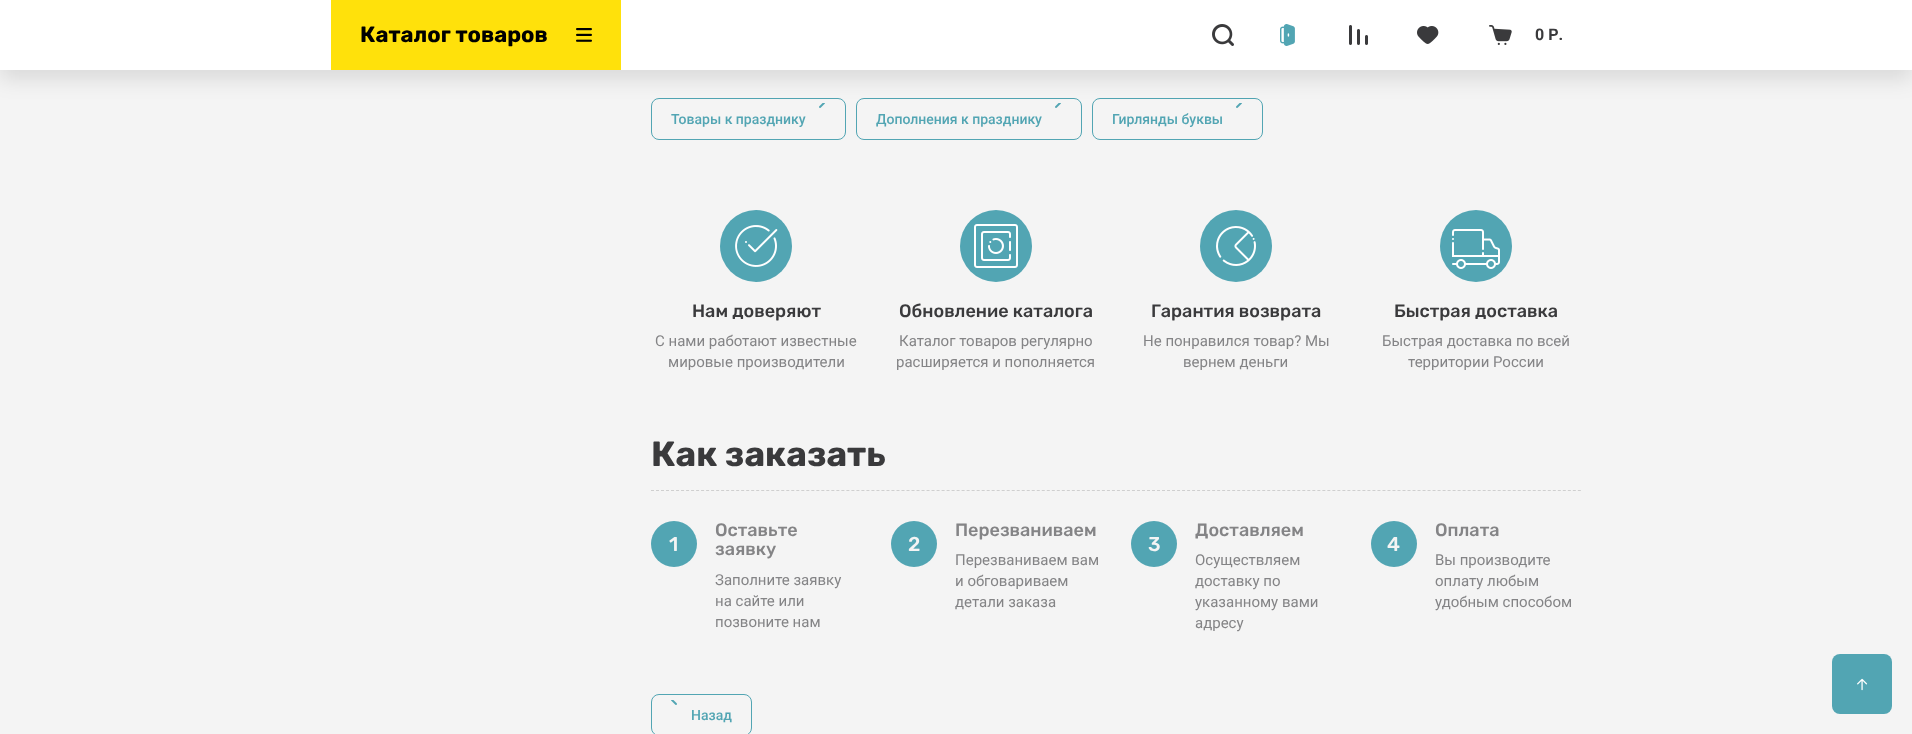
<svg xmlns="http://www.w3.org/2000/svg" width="1912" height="734">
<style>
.a{font:bold 22px Rubik;fill:#000}
.b{font:bold 16px Roboto;fill:#3a3a3c}
.c{font:500 14px Roboto;fill:#52a5b3}
.d{font:500 18px Rubik;fill:#3a3a3c}
.e{font:15px Roboto;fill:#848486}
.f{font:bold 35px Rubik;fill:#3a3a3c}
.g{font:500 20px Rubik;fill:#f4f4f4}
.h{font:500 18px Rubik;fill:#848486}
</style>
<rect width="100%" height="100%" fill="#f4f4f4"/>
<rect fill="none" stroke="#52a5b3" x="651.5" y="98.5" width="194" height="41" rx="7.5"/>
<image href="7.png" x="819" y="103" width="6" height="5"/>
<rect fill="none" stroke="#52a5b3" x="856.5" y="98.5" width="225" height="41" rx="7.5"/>
<image href="7.png" x="1055" y="103" width="6" height="5"/>
<rect fill="none" stroke="#52a5b3" x="1092.5" y="98.5" width="170" height="41" rx="7.5"/>
<image href="7.png" x="1236" y="103" width="6" height="5"/>
<path fill="#0000001a" filter="blur(10px)" d="M0 10h1912v70H0z"/>
<path fill="#fff" d="M0 0h1912v70H0z"/>
<path fill="#ffe10b" d="M331 0h290v70H331z"/>
<image href="1.png" x="576" y="28" width="16" height="14"/>
<image href="2.png" x="1212" y="24" width="22" height="22"/>
<image href="3.png" x="1280" y="24" width="15" height="22"/>
<image href="4.png" x="1349" y="25" width="19" height="20"/>
<image href="5.png" x="1417" y="26" width="22" height="18"/>
<image href="6.png" x="1489" y="25" width="23" height="20"/>
<circle fill="#52a5b3" cx="756" cy="246" r="36"/>
<image href="8.png" x="735" y="225" width="43" height="42"/>
<circle fill="#52a5b3" cx="996" cy="246" r="36"/>
<image href="9.png" x="974" y="224" width="44" height="44"/>
<circle fill="#52a5b3" cx="1236" cy="246" r="36"/>
<image href="10.png" x="1216" y="226" width="40" height="40"/>
<circle fill="#52a5b3" cx="1476" cy="246" r="36"/>
<image href="11.png" x="1452" y="229" width="48" height="40"/>
<path fill="none" stroke="#cfcfcf" stroke-dasharray="3 2.01" d="M651 490.5h930"/>
<circle fill="#52a5b3" cx="674" cy="544" r="23"/>
<circle fill="#52a5b3" cx="914" cy="544" r="23"/>
<circle fill="#52a5b3" cx="1154" cy="544" r="23"/>
<circle fill="#52a5b3" cx="1394" cy="544" r="23"/>
<rect fill="none" stroke="#52a5b3" x="651.5" y="694.5" width="100" height="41" rx="7.5"/>
<image href="12.png" x="671" y="700" width="6" height="5"/>
<rect fill="#52a5b3" x="1832" y="654" width="60" height="60" rx="8"/>
<image href="13.png" x="1857" y="678" width="11" height="13"/>
<text class="a" x="360" y="42">Каталог товаров</text>
<text class="b" x="1535" y="40">0 Р.</text>
<text class="c" x="671" y="124">Товары к празднику</text>
<text class="c" x="876" y="124">Дополнения к празднику</text>
<text class="c" x="1112" y="124">Гирлянды буквы</text>
<text class="d" x="692" y="317">Нам доверяют</text>
<text class="e" x="655" y="346">С нами работают известные</text>
<text class="e" x="668" y="367">мировые производители</text>
<text class="d" x="899" y="317">Обновление каталога</text>
<text class="e" x="899" y="346">Каталог товаров регулярно</text>
<text class="e" x="896" y="367">расширяется и пополняется</text>
<text class="d" x="1151" y="317">Гарантия возврата</text>
<text class="e" x="1143" y="346">Не понравился товар? Мы</text>
<text class="e" x="1183" y="367">вернем деньги</text>
<text class="d" x="1394" y="317">Быстрая доставка</text>
<text class="e" x="1382" y="346">Быстрая доставка по всей</text>
<text class="e" x="1408" y="367">территории России</text>
<text class="f" x="651" y="466">Как заказать</text>
<text class="g" x="669" y="551">1</text>
<text class="h" x="715" y="536">Оставьте</text>
<text class="h" x="715" y="555">заявку</text>
<text class="e" x="715" y="585">Заполните заявку</text>
<text class="e" x="715" y="606">на сайте или</text>
<text class="e" x="715" y="627">позвоните нам</text>
<text class="g" x="908" y="551">2</text>
<text class="h" x="955" y="536">Перезваниваем</text>
<text class="e" x="955" y="565">Перезваниваем вам</text>
<text class="e" x="955" y="586">и обговариваем</text>
<text class="e" x="955" y="607">детали заказа</text>
<text class="g" x="1148" y="551">3</text>
<text class="h" x="1195" y="536">Доставляем</text>
<text class="e" x="1195" y="565">Осуществляем</text>
<text class="e" x="1195" y="586">доставку по</text>
<text class="e" x="1195" y="607">указанному вами</text>
<text class="e" x="1195" y="628">адресу</text>
<text class="g" x="1387" y="551">4</text>
<text class="h" x="1435" y="536">Оплата</text>
<text class="e" x="1435" y="565">Вы производите</text>
<text class="e" x="1435" y="586">оплату любым</text>
<text class="e" x="1435" y="607">удобным способом</text>
<text class="c" x="691" y="720">Назад</text>
</svg>
